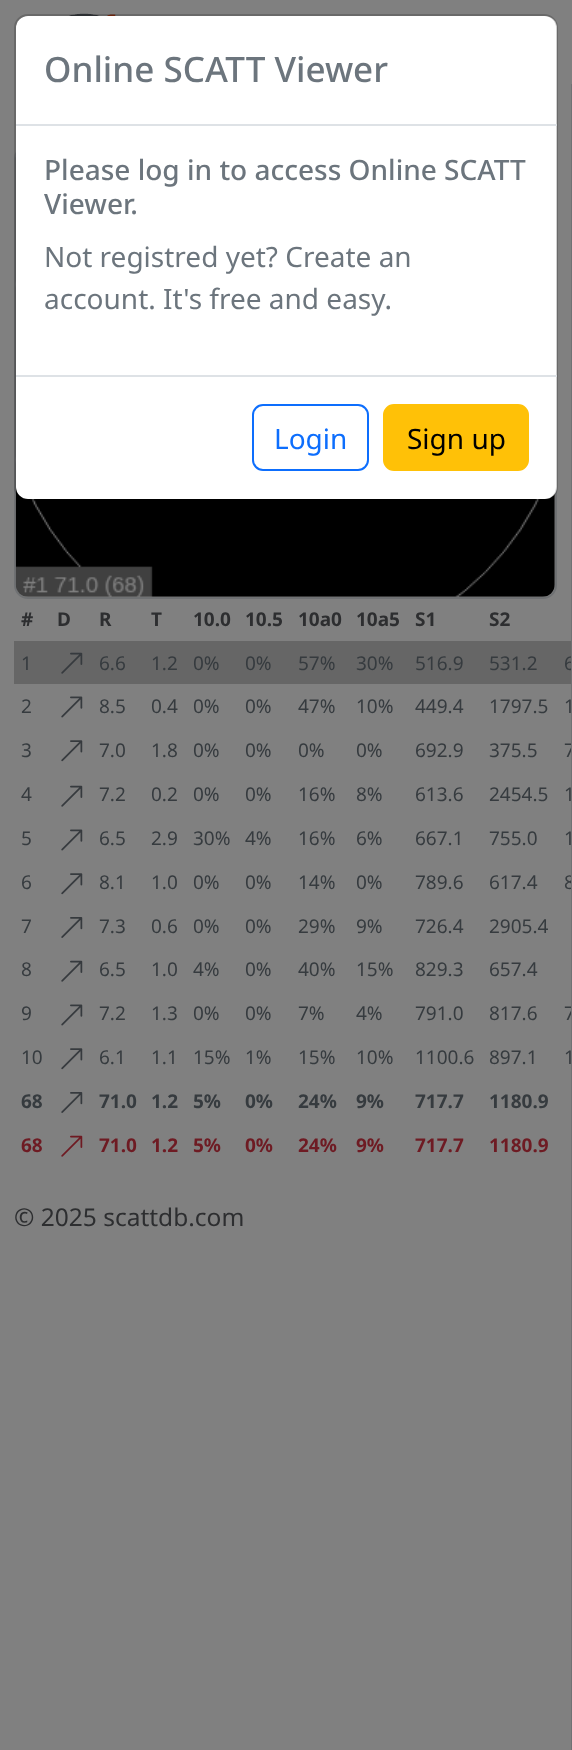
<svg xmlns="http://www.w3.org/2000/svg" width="572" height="1750">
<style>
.a{font:500 35px Noto Sans;fill:#6c757d}
.b{font:500 28px Noto Sans;fill:#6c757d}
.c{font:28px Noto Sans;fill:#6c757d}
.d{font:28px Noto Sans;fill:#0d6efd}
.e{font:28px Noto Sans;fill:#000}
.f{font:bold 19px Noto Sans;fill:#2d2e30}
.g{font:19px Noto Sans;fill:#363b3f}
.h{font:bold 19px Noto Sans;fill:#363b3f}
.i{font:bold 19px Noto Sans;fill:#6e1b23}
.j{font:24.5px Noto Sans;fill:#2d2e30}
</style>
<defs>
<clipPath id="clip1"><path d="M0 84h571v1666H0z"/></clipPath>
</defs>
<rect width="100%" height="100%" fill="#808080"/>
<image href="1.png" x="69" y="13" width="47" height="3"/>
<rect fill="none" stroke="#6f7173" stroke-width="2" x="15" y="146" width="541" height="452" rx="13"/>
<image href="2.png" x="15" y="157" width="540" height="440"/>
<rect fill="#fff" x="16" y="16" width="541" height="483" rx="12"/>
<rect fill="none" stroke="#0000002e" stroke-width="2" x="15" y="15" width="542" height="485" rx="13"/>
<path fill="#dee2e6" d="M16 124h541v2H16z"/>
<path fill="#dee2e6" d="M16 375h541v2H16z"/>
<rect fill="none" stroke="#0d6efd" stroke-width="2" x="253" y="405" width="115" height="65" rx="10"/>
<rect fill="#ffc107" stroke="#ffc107" stroke-width="2" x="384" y="405" width="144" height="65" rx="10"/>
<path fill="#6f7173" d="M571 84h1v1666H571z"/>
<path fill="#666" d="M14 641h557v43H14z"/>
<image href="3.png" x="61" y="652" width="22" height="22"/>
<image href="4.png" x="61" y="696" width="22" height="22"/>
<image href="5.png" x="61" y="740" width="22" height="22"/>
<image href="6.png" x="61" y="785" width="22" height="22"/>
<image href="4.png" x="61" y="829" width="22" height="22"/>
<image href="5.png" x="61" y="873" width="22" height="22"/>
<image href="7.png" x="61" y="917" width="22" height="21"/>
<image href="6.png" x="61" y="960" width="22" height="22"/>
<image href="4.png" x="61" y="1004" width="22" height="22"/>
<image href="5.png" x="61" y="1048" width="22" height="22"/>
<image href="7.png" x="61" y="1092" width="22" height="21"/>
<image href="8.png" x="61" y="1135" width="22" height="22"/>
<text class="a" x="44" y="82">Online SCATT Viewer</text>
<text class="b" x="44" y="180">Please log in to access Online SCATT</text>
<text class="b" x="44" y="214">Viewer.</text>
<text class="c" x="44" y="267">Not registred yet? Create an</text>
<text class="c" x="44" y="309">account. It's free and easy.</text>
<text class="d" x="274" y="449">Login</text>
<text class="e" x="407" y="449">Sign up</text>
<text class="f" x="21" y="626">#</text>
<text class="f" x="57" y="626">D</text>
<text class="f" x="99" y="626">R</text>
<text class="f" x="151" y="626">T</text>
<text class="f" x="193" y="626">10.0</text>
<text class="f" x="245" y="626">10.5</text>
<text class="f" x="298" y="626">10a0</text>
<text class="f" x="356" y="626">10a5</text>
<text class="f" x="415" y="626">S1</text>
<text class="f" x="489" y="626">S2</text>
<text class="g" x="21" y="670">1</text>
<text class="g" x="99" y="670">6.6</text>
<text class="g" x="151" y="670">1.2</text>
<text class="g" x="193" y="670">0%</text>
<text class="g" x="245" y="670">0%</text>
<text class="g" x="298" y="670">57%</text>
<text class="g" x="356" y="670">30%</text>
<text class="g" x="415" y="670">516.9</text>
<text class="g" x="489" y="670">531.2</text>
<g clip-path="url(#clip1)">
<text class="g" x="564" y="670">6</text>
</g>
<text class="g" x="21" y="713">2</text>
<text class="g" x="99" y="713">8.5</text>
<text class="g" x="151" y="713">0.4</text>
<text class="g" x="193" y="713">0%</text>
<text class="g" x="245" y="713">0%</text>
<text class="g" x="298" y="713">47%</text>
<text class="g" x="356" y="713">10%</text>
<text class="g" x="415" y="713">449.4</text>
<text class="g" x="489" y="713">1797.5</text>
<text class="g" x="564" y="713">1</text>
<text class="g" x="21" y="757">3</text>
<text class="g" x="99" y="757">7.0</text>
<text class="g" x="151" y="757">1.8</text>
<text class="g" x="193" y="757">0%</text>
<text class="g" x="245" y="757">0%</text>
<text class="g" x="298" y="757">0%</text>
<text class="g" x="356" y="757">0%</text>
<text class="g" x="415" y="757">692.9</text>
<text class="g" x="489" y="757">375.5</text>
<g clip-path="url(#clip1)">
<text class="g" x="564" y="757">7</text>
</g>
<text class="g" x="21" y="801">4</text>
<text class="g" x="99" y="801">7.2</text>
<text class="g" x="151" y="801">0.2</text>
<text class="g" x="193" y="801">0%</text>
<text class="g" x="245" y="801">0%</text>
<text class="g" x="298" y="801">16%</text>
<text class="g" x="356" y="801">8%</text>
<text class="g" x="415" y="801">613.6</text>
<text class="g" x="489" y="801">2454.5</text>
<text class="g" x="564" y="801">1</text>
<text class="g" x="21" y="845">5</text>
<text class="g" x="99" y="845">6.5</text>
<text class="g" x="151" y="845">2.9</text>
<text class="g" x="193" y="845">30%</text>
<text class="g" x="245" y="845">4%</text>
<text class="g" x="298" y="845">16%</text>
<text class="g" x="356" y="845">6%</text>
<text class="g" x="415" y="845">667.1</text>
<text class="g" x="489" y="845">755.0</text>
<text class="g" x="564" y="845">1</text>
<text class="g" x="21" y="889">6</text>
<text class="g" x="99" y="889">8.1</text>
<text class="g" x="151" y="889">1.0</text>
<text class="g" x="193" y="889">0%</text>
<text class="g" x="245" y="889">0%</text>
<text class="g" x="298" y="889">14%</text>
<text class="g" x="356" y="889">0%</text>
<text class="g" x="415" y="889">789.6</text>
<text class="g" x="489" y="889">617.4</text>
<g clip-path="url(#clip1)">
<text class="g" x="564" y="889">8</text>
</g>
<text class="g" x="21" y="933">7</text>
<text class="g" x="99" y="933">7.3</text>
<text class="g" x="151" y="933">0.6</text>
<text class="g" x="193" y="933">0%</text>
<text class="g" x="245" y="933">0%</text>
<text class="g" x="298" y="933">29%</text>
<text class="g" x="356" y="933">9%</text>
<text class="g" x="415" y="933">726.4</text>
<text class="g" x="489" y="933">2905.4</text>
<text class="g" x="21" y="976">8</text>
<text class="g" x="99" y="976">6.5</text>
<text class="g" x="151" y="976">1.0</text>
<text class="g" x="193" y="976">4%</text>
<text class="g" x="245" y="976">0%</text>
<text class="g" x="298" y="976">40%</text>
<text class="g" x="356" y="976">15%</text>
<text class="g" x="415" y="976">829.3</text>
<text class="g" x="489" y="976">657.4</text>
<text class="g" x="21" y="1020">9</text>
<text class="g" x="99" y="1020">7.2</text>
<text class="g" x="151" y="1020">1.3</text>
<text class="g" x="193" y="1020">0%</text>
<text class="g" x="245" y="1020">0%</text>
<text class="g" x="298" y="1020">7%</text>
<text class="g" x="356" y="1020">4%</text>
<text class="g" x="415" y="1020">791.0</text>
<text class="g" x="489" y="1020">817.6</text>
<g clip-path="url(#clip1)">
<text class="g" x="564" y="1020">7</text>
</g>
<text class="g" x="21" y="1064">10</text>
<text class="g" x="99" y="1064">6.1</text>
<text class="g" x="151" y="1064">1.1</text>
<text class="g" x="193" y="1064">15%</text>
<text class="g" x="245" y="1064">1%</text>
<text class="g" x="298" y="1064">15%</text>
<text class="g" x="356" y="1064">10%</text>
<text class="g" x="415" y="1064">1100.6</text>
<text class="g" x="489" y="1064">897.1</text>
<text class="g" x="564" y="1064">1</text>
<text class="h" x="21" y="1108">68</text>
<text class="h" x="99" y="1108">71.0</text>
<text class="h" x="151" y="1108">1.2</text>
<text class="h" x="193" y="1108">5%</text>
<text class="h" x="245" y="1108">0%</text>
<text class="h" x="298" y="1108">24%</text>
<text class="h" x="356" y="1108">9%</text>
<text class="h" x="415" y="1108">717.7</text>
<text class="h" x="489" y="1108">1180.9</text>
<text class="i" x="21" y="1152">68</text>
<text class="i" x="99" y="1152">71.0</text>
<text class="i" x="151" y="1152">1.2</text>
<text class="i" x="193" y="1152">5%</text>
<text class="i" x="245" y="1152">0%</text>
<text class="i" x="298" y="1152">24%</text>
<text class="i" x="356" y="1152">9%</text>
<text class="i" x="415" y="1152">717.7</text>
<text class="i" x="489" y="1152">1180.9</text>
<text class="j" x="14" y="1226">© 2025 scattdb.com</text>
</svg>
